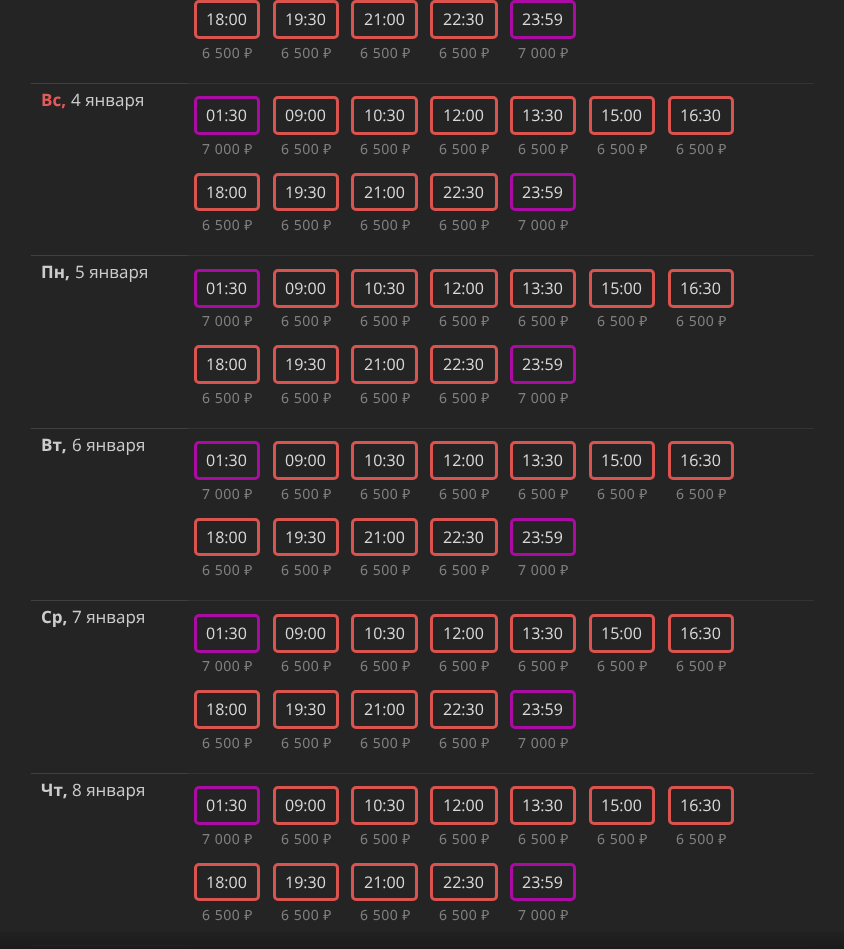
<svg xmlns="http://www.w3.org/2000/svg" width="844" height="949">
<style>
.a{font:16px Open Sans;fill:#d9d9d9}
.b{font:14px Noto Sans;letter-spacing:0.5px;fill:#808080}
.c{font:bold 17px Open Sans;fill:#e25a5a}
.d{font:17px Open Sans;fill:#ccc}
.e{font:bold 17px Open Sans;fill:#ccc}
</style>
<defs>
<linearGradient id="g1" gradientUnits="userSpaceOnUse" x1="423" y1="925" x2="423" y2="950"><stop offset="0" stop-color="#1a1a1a" stop-opacity="0"/><stop offset="1" stop-color="#1a1a1a"/></linearGradient>
</defs>
<rect width="100%" height="100%" fill="#242424"/>
<rect fill="none" stroke="#d9534f" stroke-width="3" x="195.5" y="1.5" width="63" height="36" rx="3.5"/>
<rect fill="none" stroke="#d9534f" stroke-width="3" x="274.5" y="1.5" width="63" height="36" rx="3.5"/>
<rect fill="none" stroke="#d9534f" stroke-width="3" x="352.5" y="1.5" width="64" height="36" rx="3.5"/>
<rect fill="none" stroke="#d9534f" stroke-width="3" x="431.5" y="1.5" width="65" height="36" rx="3.5"/>
<rect fill="none" stroke="#aa0ba3" stroke-width="3" x="511.5" y="1.5" width="63" height="36" rx="3.5"/>
<path fill="#404040" d="M31 83h157v1H31z"/>
<path fill="#333" d="M188 83h626v1H188z"/>
<rect fill="none" stroke="#aa0ba3" stroke-width="3" x="195.5" y="97.5" width="63" height="36" rx="3.5"/>
<rect fill="none" stroke="#d9534f" stroke-width="3" x="274.5" y="97.5" width="63" height="36" rx="3.5"/>
<rect fill="none" stroke="#d9534f" stroke-width="3" x="352.5" y="97.5" width="64" height="36" rx="3.5"/>
<rect fill="none" stroke="#d9534f" stroke-width="3" x="431.5" y="97.5" width="65" height="36" rx="3.5"/>
<rect fill="none" stroke="#d9534f" stroke-width="3" x="511.5" y="97.5" width="63" height="36" rx="3.5"/>
<rect fill="none" stroke="#d9534f" stroke-width="3" x="590.5" y="97.5" width="63" height="36" rx="3.5"/>
<rect fill="none" stroke="#d9534f" stroke-width="3" x="669.5" y="97.5" width="63" height="36" rx="3.5"/>
<rect fill="none" stroke="#d9534f" stroke-width="3" x="195.5" y="174.5" width="63" height="35" rx="3.5"/>
<rect fill="none" stroke="#d9534f" stroke-width="3" x="274.5" y="174.5" width="63" height="35" rx="3.5"/>
<rect fill="none" stroke="#d9534f" stroke-width="3" x="352.5" y="174.5" width="64" height="35" rx="3.5"/>
<rect fill="none" stroke="#d9534f" stroke-width="3" x="431.5" y="174.5" width="65" height="35" rx="3.5"/>
<rect fill="none" stroke="#aa0ba3" stroke-width="3" x="511.5" y="174.5" width="63" height="35" rx="3.5"/>
<path fill="#404040" d="M31 255h157v1H31z"/>
<path fill="#333" d="M188 255h626v1H188z"/>
<rect fill="none" stroke="#aa0ba3" stroke-width="3" x="195.5" y="270.5" width="63" height="36" rx="3.5"/>
<rect fill="none" stroke="#d9534f" stroke-width="3" x="274.5" y="270.5" width="63" height="36" rx="3.5"/>
<rect fill="none" stroke="#d9534f" stroke-width="3" x="352.5" y="270.5" width="64" height="36" rx="3.5"/>
<rect fill="none" stroke="#d9534f" stroke-width="3" x="431.5" y="270.5" width="65" height="36" rx="3.5"/>
<rect fill="none" stroke="#d9534f" stroke-width="3" x="511.5" y="270.5" width="63" height="36" rx="3.5"/>
<rect fill="none" stroke="#d9534f" stroke-width="3" x="590.5" y="270.5" width="63" height="36" rx="3.5"/>
<rect fill="none" stroke="#d9534f" stroke-width="3" x="669.5" y="270.5" width="63" height="36" rx="3.5"/>
<rect fill="none" stroke="#d9534f" stroke-width="3" x="195.5" y="346.5" width="63" height="36" rx="3.5"/>
<rect fill="none" stroke="#d9534f" stroke-width="3" x="274.5" y="346.5" width="63" height="36" rx="3.5"/>
<rect fill="none" stroke="#d9534f" stroke-width="3" x="352.5" y="346.5" width="64" height="36" rx="3.5"/>
<rect fill="none" stroke="#d9534f" stroke-width="3" x="431.5" y="346.5" width="65" height="36" rx="3.5"/>
<rect fill="none" stroke="#aa0ba3" stroke-width="3" x="511.5" y="346.5" width="63" height="36" rx="3.5"/>
<path fill="#404040" d="M31 428h157v1H31z"/>
<path fill="#333" d="M188 428h626v1H188z"/>
<rect fill="none" stroke="#aa0ba3" stroke-width="3" x="195.5" y="442.5" width="63" height="36" rx="3.5"/>
<rect fill="none" stroke="#d9534f" stroke-width="3" x="274.5" y="442.5" width="63" height="36" rx="3.5"/>
<rect fill="none" stroke="#d9534f" stroke-width="3" x="352.5" y="442.5" width="64" height="36" rx="3.5"/>
<rect fill="none" stroke="#d9534f" stroke-width="3" x="431.5" y="442.5" width="65" height="36" rx="3.5"/>
<rect fill="none" stroke="#d9534f" stroke-width="3" x="511.5" y="442.5" width="63" height="36" rx="3.5"/>
<rect fill="none" stroke="#d9534f" stroke-width="3" x="590.5" y="442.5" width="63" height="36" rx="3.5"/>
<rect fill="none" stroke="#d9534f" stroke-width="3" x="669.5" y="442.5" width="63" height="36" rx="3.5"/>
<rect fill="none" stroke="#d9534f" stroke-width="3" x="195.5" y="519.5" width="63" height="35" rx="3.5"/>
<rect fill="none" stroke="#d9534f" stroke-width="3" x="274.5" y="519.5" width="63" height="35" rx="3.5"/>
<rect fill="none" stroke="#d9534f" stroke-width="3" x="352.5" y="519.5" width="64" height="35" rx="3.5"/>
<rect fill="none" stroke="#d9534f" stroke-width="3" x="431.5" y="519.5" width="65" height="35" rx="3.5"/>
<rect fill="none" stroke="#aa0ba3" stroke-width="3" x="511.5" y="519.5" width="63" height="35" rx="3.5"/>
<path fill="#404040" d="M31 600h157v1H31z"/>
<path fill="#333" d="M188 600h626v1H188z"/>
<rect fill="none" stroke="#aa0ba3" stroke-width="3" x="195.5" y="615.5" width="63" height="36" rx="3.5"/>
<rect fill="none" stroke="#d9534f" stroke-width="3" x="274.5" y="615.5" width="63" height="36" rx="3.5"/>
<rect fill="none" stroke="#d9534f" stroke-width="3" x="352.5" y="615.5" width="64" height="36" rx="3.5"/>
<rect fill="none" stroke="#d9534f" stroke-width="3" x="431.5" y="615.5" width="65" height="36" rx="3.5"/>
<rect fill="none" stroke="#d9534f" stroke-width="3" x="511.5" y="615.5" width="63" height="36" rx="3.5"/>
<rect fill="none" stroke="#d9534f" stroke-width="3" x="590.5" y="615.5" width="63" height="36" rx="3.5"/>
<rect fill="none" stroke="#d9534f" stroke-width="3" x="669.5" y="615.5" width="63" height="36" rx="3.5"/>
<rect fill="none" stroke="#d9534f" stroke-width="3" x="195.5" y="691.5" width="63" height="36" rx="3.5"/>
<rect fill="none" stroke="#d9534f" stroke-width="3" x="274.5" y="691.5" width="63" height="36" rx="3.5"/>
<rect fill="none" stroke="#d9534f" stroke-width="3" x="352.5" y="691.5" width="64" height="36" rx="3.5"/>
<rect fill="none" stroke="#d9534f" stroke-width="3" x="431.5" y="691.5" width="65" height="36" rx="3.5"/>
<rect fill="none" stroke="#aa0ba3" stroke-width="3" x="511.5" y="691.5" width="63" height="36" rx="3.5"/>
<path fill="#404040" d="M31 773h157v1H31z"/>
<path fill="#333" d="M188 773h626v1H188z"/>
<rect fill="none" stroke="#aa0ba3" stroke-width="3" x="195.5" y="787.5" width="63" height="36" rx="3.5"/>
<rect fill="none" stroke="#d9534f" stroke-width="3" x="274.5" y="787.5" width="63" height="36" rx="3.5"/>
<rect fill="none" stroke="#d9534f" stroke-width="3" x="352.5" y="787.5" width="64" height="36" rx="3.5"/>
<rect fill="none" stroke="#d9534f" stroke-width="3" x="431.5" y="787.5" width="65" height="36" rx="3.5"/>
<rect fill="none" stroke="#d9534f" stroke-width="3" x="511.5" y="787.5" width="63" height="36" rx="3.5"/>
<rect fill="none" stroke="#d9534f" stroke-width="3" x="590.5" y="787.5" width="63" height="36" rx="3.5"/>
<rect fill="none" stroke="#d9534f" stroke-width="3" x="669.5" y="787.5" width="63" height="36" rx="3.5"/>
<rect fill="none" stroke="#d9534f" stroke-width="3" x="195.5" y="864.5" width="63" height="35" rx="3.5"/>
<rect fill="none" stroke="#d9534f" stroke-width="3" x="274.5" y="864.5" width="63" height="35" rx="3.5"/>
<rect fill="none" stroke="#d9534f" stroke-width="3" x="352.5" y="864.5" width="64" height="35" rx="3.5"/>
<rect fill="none" stroke="#d9534f" stroke-width="3" x="431.5" y="864.5" width="65" height="35" rx="3.5"/>
<rect fill="none" stroke="#aa0ba3" stroke-width="3" x="511.5" y="864.5" width="63" height="35" rx="3.5"/>
<path fill="#404040" d="M31 945h157v1H31z"/>
<path fill="#333" d="M188 945h626v1H188z"/>
<path fill="url(#g1)" d="M0 932h844v17H0z"/>
<text class="a" x="206" y="25">18:00</text>
<text class="b" x="202" y="58">6 500 ₽</text>
<text class="a" x="285" y="25">19:30</text>
<text class="b" x="281" y="58">6 500 ₽</text>
<text class="a" x="364" y="25">21:00</text>
<text class="b" x="360" y="58">6 500 ₽</text>
<text class="a" x="443" y="25">22:30</text>
<text class="b" x="439" y="58">6 500 ₽</text>
<text class="a" x="522" y="25">23:59</text>
<text class="b" x="518" y="58">7 000 ₽</text>
<text class="c" x="41" y="106">Вс,</text>
<text class="d" x="71" y="106">4 января</text>
<text class="a" x="206" y="121">01:30</text>
<text class="b" x="202" y="154">7 000 ₽</text>
<text class="a" x="285" y="121">09:00</text>
<text class="b" x="281" y="154">6 500 ₽</text>
<text class="a" x="364" y="121">10:30</text>
<text class="b" x="360" y="154">6 500 ₽</text>
<text class="a" x="443" y="121">12:00</text>
<text class="b" x="439" y="154">6 500 ₽</text>
<text class="a" x="522" y="121">13:30</text>
<text class="b" x="518" y="154">6 500 ₽</text>
<text class="a" x="601" y="121">15:00</text>
<text class="b" x="597" y="154">6 500 ₽</text>
<text class="a" x="680" y="121">16:30</text>
<text class="b" x="676" y="154">6 500 ₽</text>
<text class="a" x="206" y="198">18:00</text>
<text class="b" x="202" y="230">6 500 ₽</text>
<text class="a" x="285" y="198">19:30</text>
<text class="b" x="281" y="230">6 500 ₽</text>
<text class="a" x="364" y="198">21:00</text>
<text class="b" x="360" y="230">6 500 ₽</text>
<text class="a" x="443" y="198">22:30</text>
<text class="b" x="439" y="230">6 500 ₽</text>
<text class="a" x="522" y="198">23:59</text>
<text class="b" x="518" y="230">7 000 ₽</text>
<text class="e" x="41" y="278">Пн,</text>
<text class="d" x="75" y="278">5 января</text>
<text class="a" x="206" y="294">01:30</text>
<text class="b" x="202" y="326">7 000 ₽</text>
<text class="a" x="285" y="294">09:00</text>
<text class="b" x="281" y="326">6 500 ₽</text>
<text class="a" x="364" y="294">10:30</text>
<text class="b" x="360" y="326">6 500 ₽</text>
<text class="a" x="443" y="294">12:00</text>
<text class="b" x="439" y="326">6 500 ₽</text>
<text class="a" x="522" y="294">13:30</text>
<text class="b" x="518" y="326">6 500 ₽</text>
<text class="a" x="601" y="294">15:00</text>
<text class="b" x="597" y="326">6 500 ₽</text>
<text class="a" x="680" y="294">16:30</text>
<text class="b" x="676" y="326">6 500 ₽</text>
<text class="a" x="206" y="370">18:00</text>
<text class="b" x="202" y="403">6 500 ₽</text>
<text class="a" x="285" y="370">19:30</text>
<text class="b" x="281" y="403">6 500 ₽</text>
<text class="a" x="364" y="370">21:00</text>
<text class="b" x="360" y="403">6 500 ₽</text>
<text class="a" x="443" y="370">22:30</text>
<text class="b" x="439" y="403">6 500 ₽</text>
<text class="a" x="522" y="370">23:59</text>
<text class="b" x="518" y="403">7 000 ₽</text>
<text class="e" x="41" y="451">Вт,</text>
<text class="d" x="72" y="451">6 января</text>
<text class="a" x="206" y="466">01:30</text>
<text class="b" x="202" y="499">7 000 ₽</text>
<text class="a" x="285" y="466">09:00</text>
<text class="b" x="281" y="499">6 500 ₽</text>
<text class="a" x="364" y="466">10:30</text>
<text class="b" x="360" y="499">6 500 ₽</text>
<text class="a" x="443" y="466">12:00</text>
<text class="b" x="439" y="499">6 500 ₽</text>
<text class="a" x="522" y="466">13:30</text>
<text class="b" x="518" y="499">6 500 ₽</text>
<text class="a" x="601" y="466">15:00</text>
<text class="b" x="597" y="499">6 500 ₽</text>
<text class="a" x="680" y="466">16:30</text>
<text class="b" x="676" y="499">6 500 ₽</text>
<text class="a" x="206" y="543">18:00</text>
<text class="b" x="202" y="575">6 500 ₽</text>
<text class="a" x="285" y="543">19:30</text>
<text class="b" x="281" y="575">6 500 ₽</text>
<text class="a" x="364" y="543">21:00</text>
<text class="b" x="360" y="575">6 500 ₽</text>
<text class="a" x="443" y="543">22:30</text>
<text class="b" x="439" y="575">6 500 ₽</text>
<text class="a" x="522" y="543">23:59</text>
<text class="b" x="518" y="575">7 000 ₽</text>
<text class="e" x="41" y="623">Ср,</text>
<text class="d" x="72" y="623">7 января</text>
<text class="a" x="206" y="639">01:30</text>
<text class="b" x="202" y="671">7 000 ₽</text>
<text class="a" x="285" y="639">09:00</text>
<text class="b" x="281" y="671">6 500 ₽</text>
<text class="a" x="364" y="639">10:30</text>
<text class="b" x="360" y="671">6 500 ₽</text>
<text class="a" x="443" y="639">12:00</text>
<text class="b" x="439" y="671">6 500 ₽</text>
<text class="a" x="522" y="639">13:30</text>
<text class="b" x="518" y="671">6 500 ₽</text>
<text class="a" x="601" y="639">15:00</text>
<text class="b" x="597" y="671">6 500 ₽</text>
<text class="a" x="680" y="639">16:30</text>
<text class="b" x="676" y="671">6 500 ₽</text>
<text class="a" x="206" y="715">18:00</text>
<text class="b" x="202" y="748">6 500 ₽</text>
<text class="a" x="285" y="715">19:30</text>
<text class="b" x="281" y="748">6 500 ₽</text>
<text class="a" x="364" y="715">21:00</text>
<text class="b" x="360" y="748">6 500 ₽</text>
<text class="a" x="443" y="715">22:30</text>
<text class="b" x="439" y="748">6 500 ₽</text>
<text class="a" x="522" y="715">23:59</text>
<text class="b" x="518" y="748">7 000 ₽</text>
<text class="e" x="41" y="796">Чт,</text>
<text class="d" x="72" y="796">8 января</text>
<text class="a" x="206" y="811">01:30</text>
<text class="b" x="202" y="844">7 000 ₽</text>
<text class="a" x="285" y="811">09:00</text>
<text class="b" x="281" y="844">6 500 ₽</text>
<text class="a" x="364" y="811">10:30</text>
<text class="b" x="360" y="844">6 500 ₽</text>
<text class="a" x="443" y="811">12:00</text>
<text class="b" x="439" y="844">6 500 ₽</text>
<text class="a" x="522" y="811">13:30</text>
<text class="b" x="518" y="844">6 500 ₽</text>
<text class="a" x="601" y="811">15:00</text>
<text class="b" x="597" y="844">6 500 ₽</text>
<text class="a" x="680" y="811">16:30</text>
<text class="b" x="676" y="844">6 500 ₽</text>
<text class="a" x="206" y="888">18:00</text>
<text class="b" x="202" y="920">6 500 ₽</text>
<text class="a" x="285" y="888">19:30</text>
<text class="b" x="281" y="920">6 500 ₽</text>
<text class="a" x="364" y="888">21:00</text>
<text class="b" x="360" y="920">6 500 ₽</text>
<text class="a" x="443" y="888">22:30</text>
<text class="b" x="439" y="920">6 500 ₽</text>
<text class="a" x="522" y="888">23:59</text>
<text class="b" x="518" y="920">7 000 ₽</text>
</svg>
